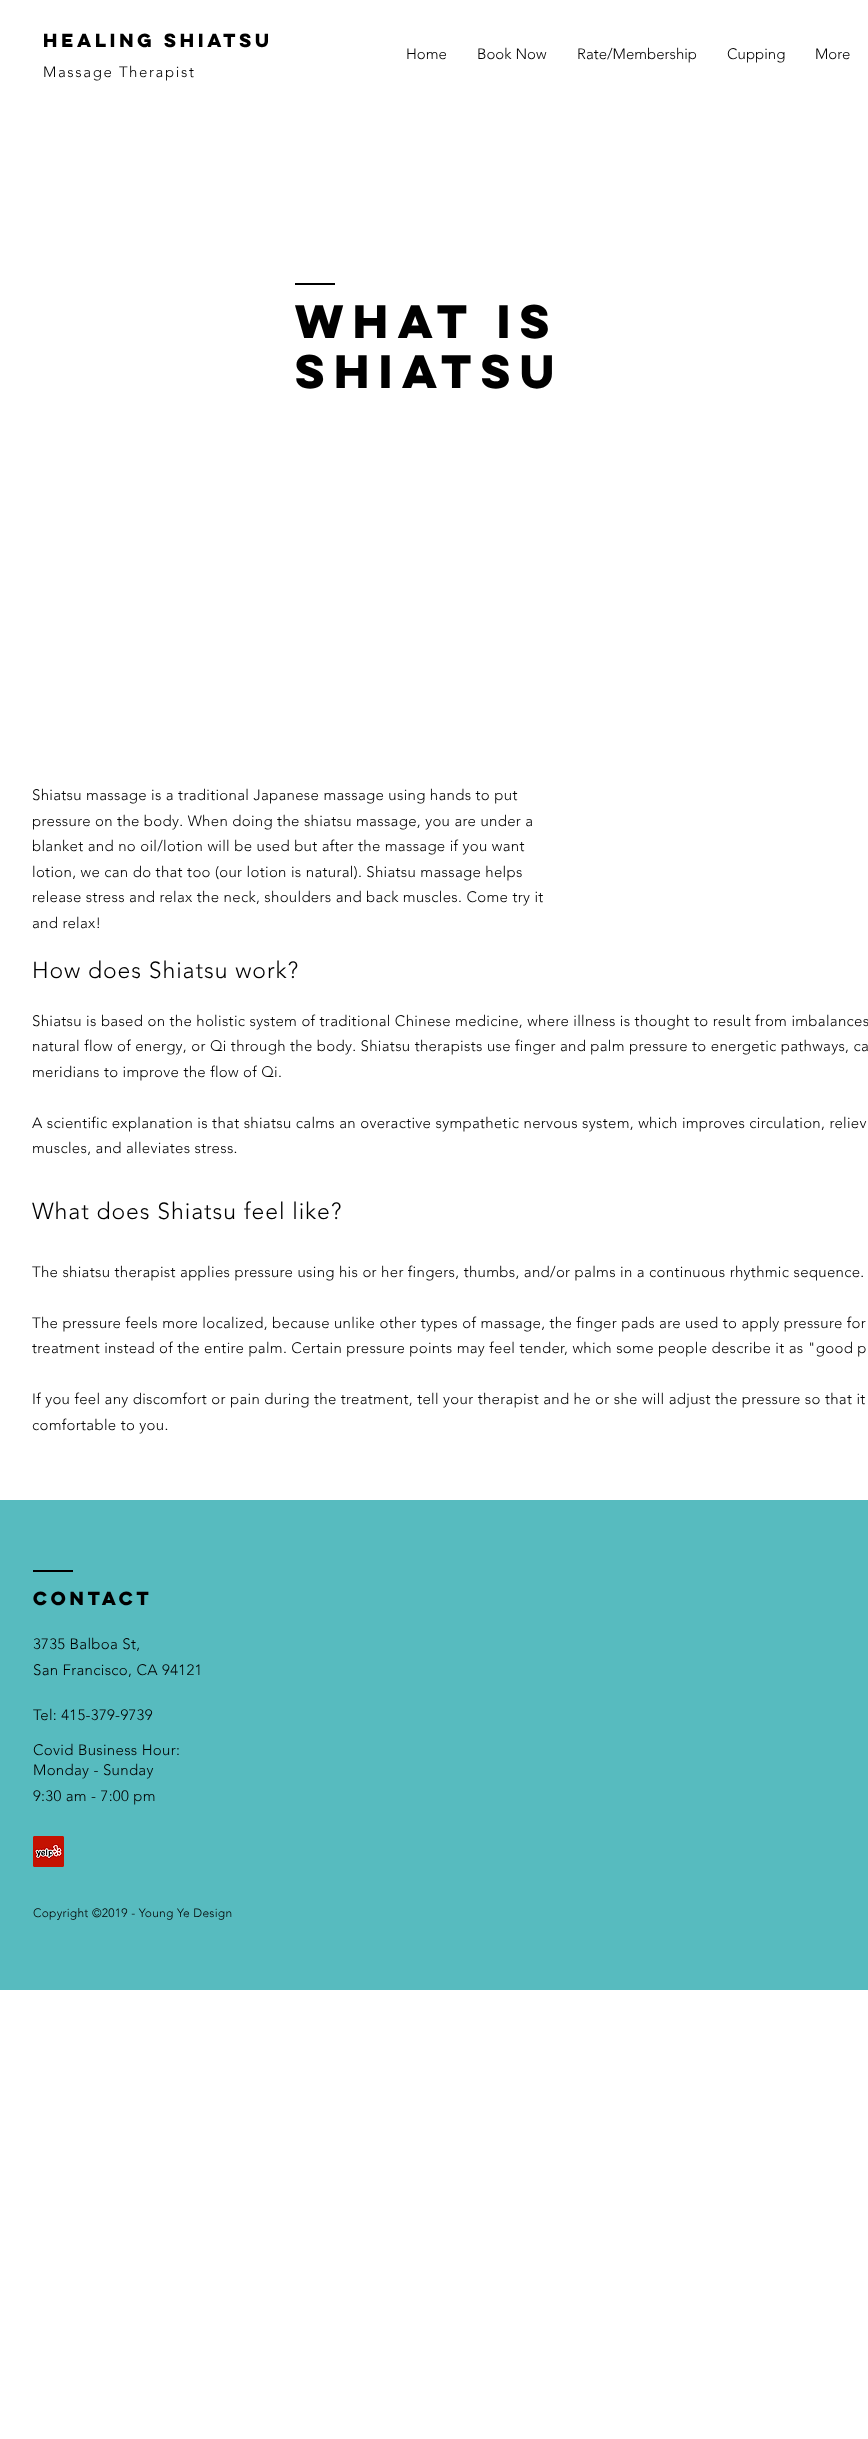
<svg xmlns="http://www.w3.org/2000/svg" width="868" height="2439">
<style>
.a{font:bold 17px 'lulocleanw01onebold';fill:#000}
.b{font:300 15px 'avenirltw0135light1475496';fill:#000}
.c{font:300 15px 'avenirltw0135light1475496';letter-spacing:1.6px;fill:#000}
.d{font:bold 42px 'lulocleanw01onebold';fill:#000}
.e{font:300 15px 'avenirltw0135light1475496';letter-spacing:0.3px;fill:#000}
.f{font:300 23px 'avenirltw0135light1475496';letter-spacing:0.9px;fill:#000}
.g{font:300 12px 'avenirltw0135light1475496';letter-spacing:0.25px;fill:#000}
</style>
<rect width="100%" height="100%" fill="#fff"/>
<path fill="#000" d="M295 283h40v2H295z"/>
<path fill="#57bbbf" d="M0 1500h868v490H0z"/>
<path fill="#000" d="M33 1570h40v2H33z"/>
<image href="1.png" x="33" y="1836" width="31" height="31"/>
<text class="a" x="43" y="47">HEALING SHIATSU</text>
<text class="b" x="406" y="59">Home</text>
<text class="b" x="477" y="59">Book Now</text>
<text class="b" x="577" y="59">Rate/Membership</text>
<text class="b" x="727" y="59">Cupping</text>
<text class="b" x="815" y="59">More</text>
<text class="c" x="43" y="77">Massage Therapist</text>
<text class="d" x="295" y="338">What is</text>
<text class="d" x="295" y="388">Shiatsu</text>
<text class="e" x="32" y="800">Shiatsu massage is a traditional Japanese massage using hands to put</text>
<text class="e" x="32" y="826">pressure on the body. When doing the shiatsu massage, you are under a</text>
<text class="e" x="32" y="851">blanket and no oil/lotion will be used but after the massage if you want</text>
<text class="e" x="32" y="877">lotion, we can do that too (our lotion is natural). Shiatsu massage helps</text>
<text class="e" x="32" y="902">release stress and relax the neck, shoulders and back muscles. Come try it</text>
<text class="e" x="32" y="928">and relax!</text>
<text class="f" x="32" y="978">How does Shiatsu work?</text>
<text class="e" x="32" y="1026">Shiatsu is based on the holistic system of traditional Chinese medicine, where illness is thought to result from imbalances</text>
<text class="e" x="32" y="1051">natural flow of energy, or Qi through the body. Shiatsu therapists use finger and palm pressure to energetic pathways, ca</text>
<text class="e" x="32" y="1077">meridians to improve the flow of Qi.</text>
<text class="e" x="32" y="1128">A scientific explanation is that shiatsu calms an overactive sympathetic nervous system, which improves circulation, reliev</text>
<text class="e" x="32" y="1153">muscles, and alleviates stress.</text>
<text class="f" x="32" y="1219">What does Shiatsu feel like?</text>
<text class="e" x="32" y="1277">The shiatsu therapist applies pressure using his or her fingers, thumbs, and/or palms in a continuous rhythmic sequence.</text>
<text class="e" x="32" y="1328">The pressure feels more localized, because unlike other types of massage, the finger pads are used to apply pressure for</text>
<text class="e" x="32" y="1353">treatment instead of the entire palm. Certain pressure points may feel tender, which some people describe it as "good p</text>
<text class="e" x="32" y="1404">If you feel any discomfort or pain during the treatment, tell your therapist and he or she will adjust the pressure so that it</text>
<text class="e" x="32" y="1430">comfortable to you.</text>
<text class="a" x="33" y="1605">Contact</text>
<text class="e" x="33" y="1649">3735 Balboa St,</text>
<text class="e" x="33" y="1675">San Francisco, CA 94121</text>
<text class="e" x="33" y="1720">Tel: 415-379-9739</text>
<text class="e" x="33" y="1755">Covid Business Hour:</text>
<text class="e" x="33" y="1775">Monday - Sunday</text>
<text class="e" x="33" y="1801">9:30 am - 7:00 pm</text>
<text class="g" x="33" y="1917">Copyright ©2019 - Young Ye Design</text>
</svg>
